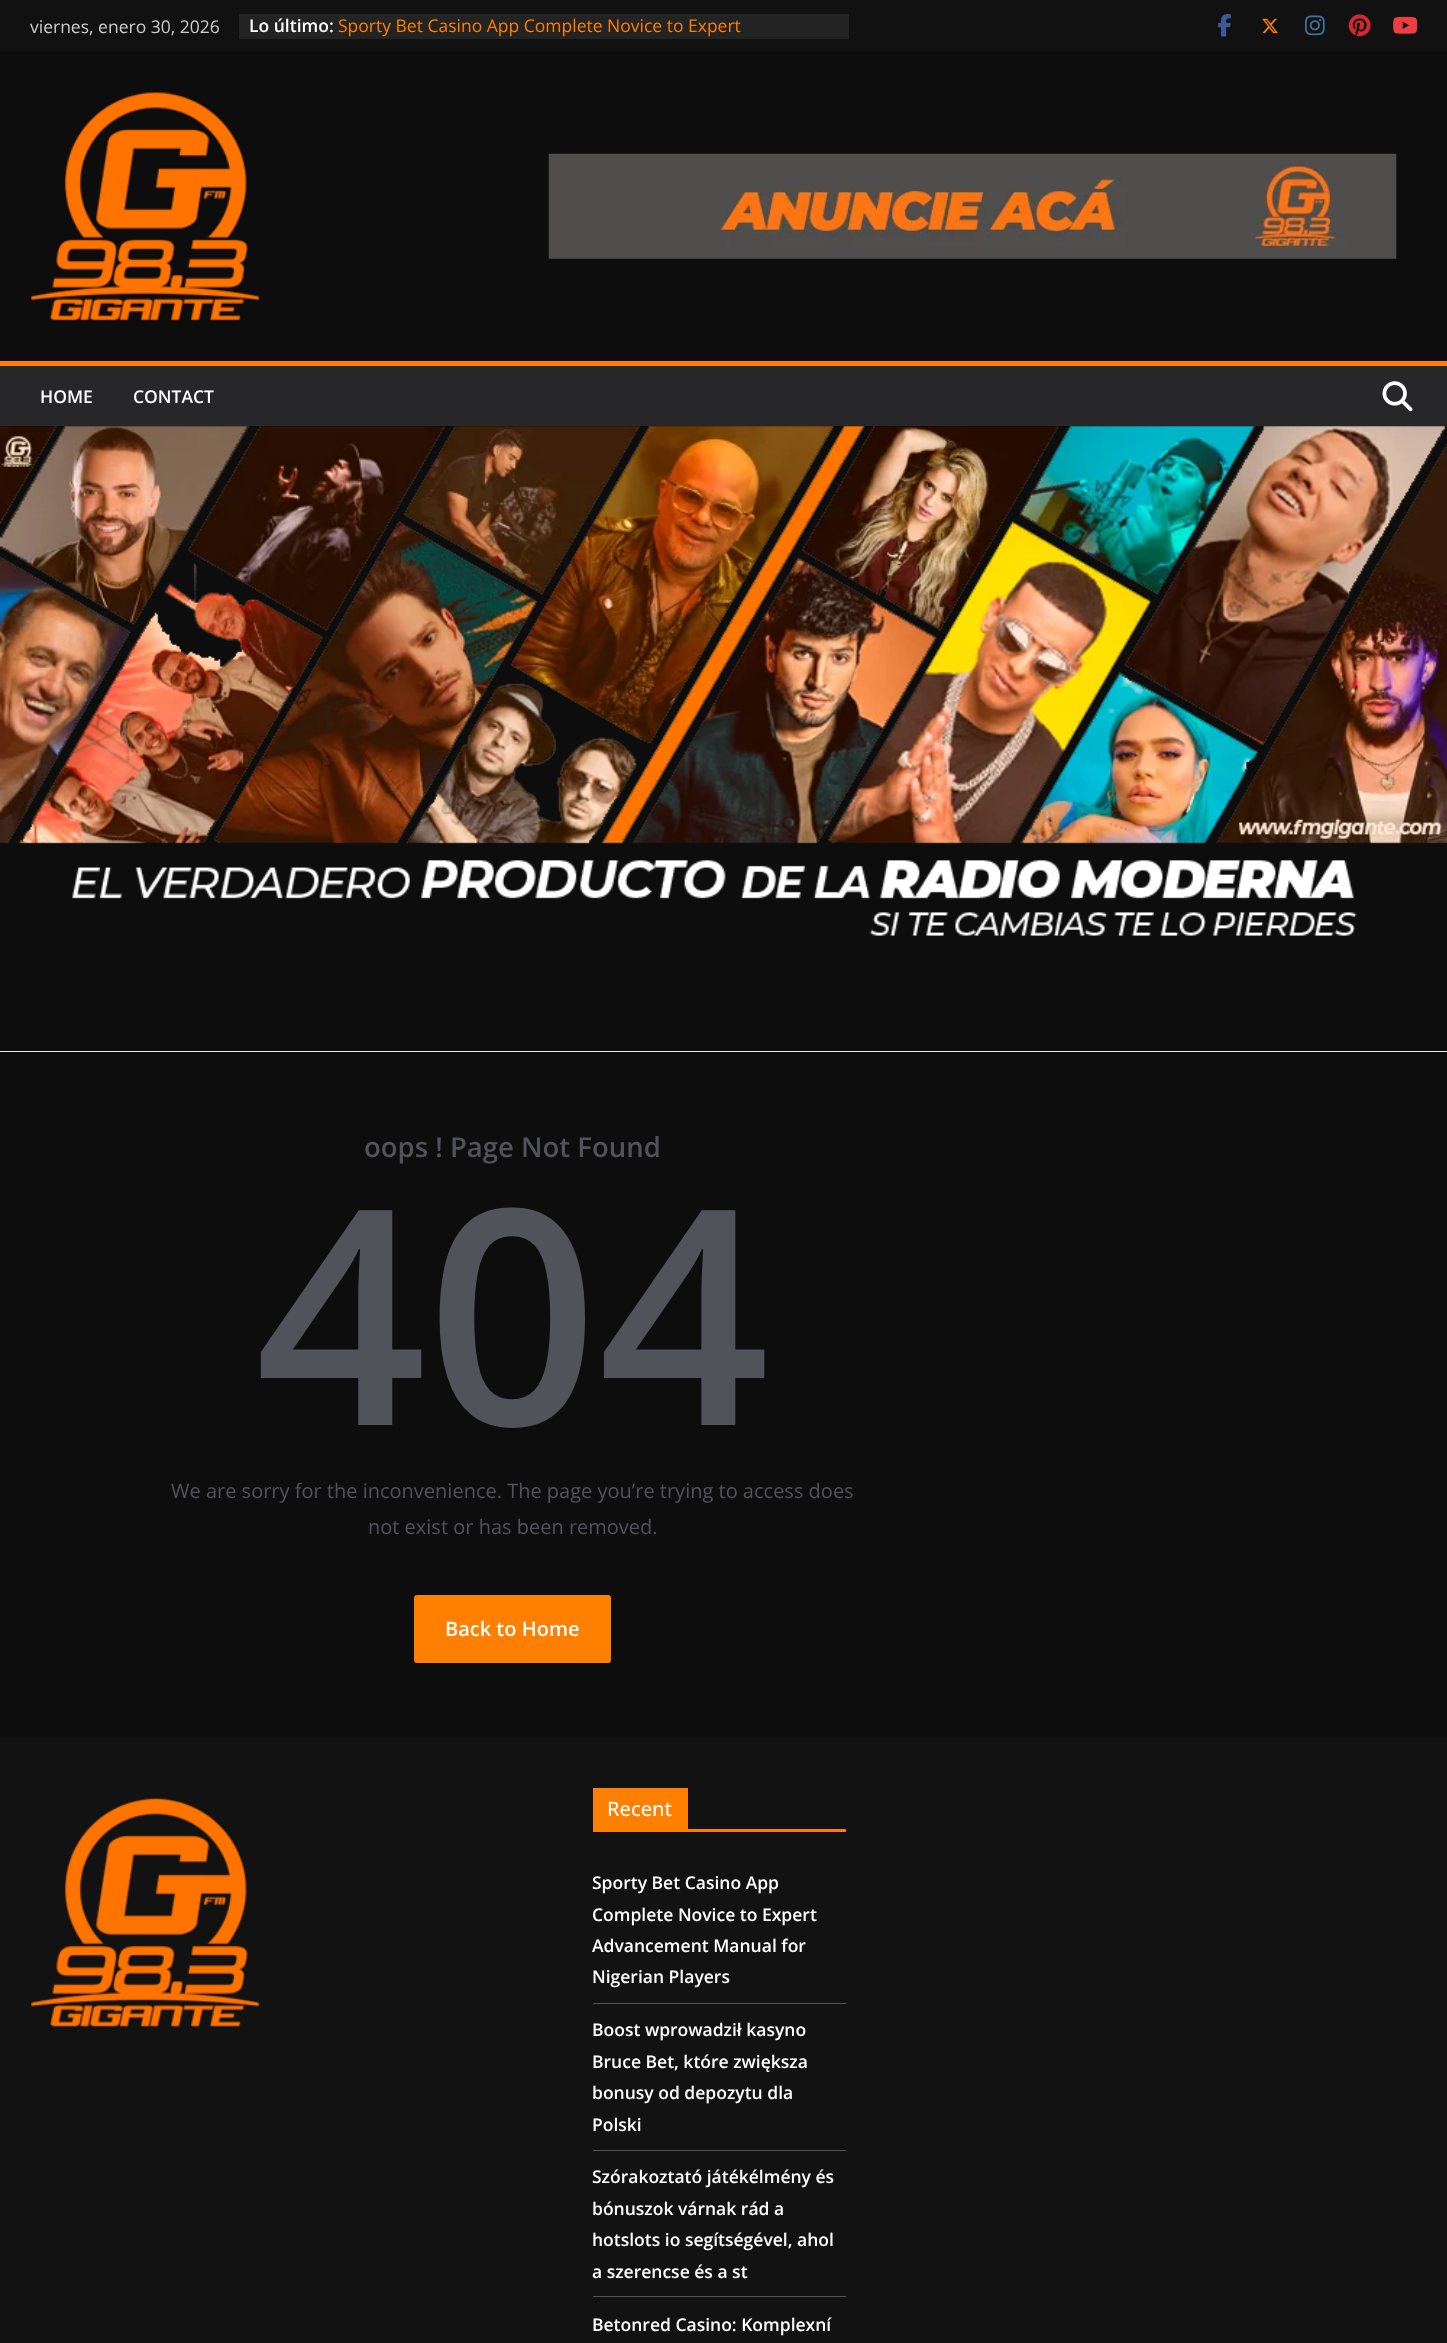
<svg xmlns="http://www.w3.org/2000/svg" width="1447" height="2343">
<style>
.a{font:17.5px Open Sans;fill:#ccc}
.b{font:600 17.5px Open Sans;fill:#fff}
.c{font:17.5px Open Sans;fill:#ff7f00}
.d{font:600 27.5px Open Sans;fill:#52525b}
.e{font:600 300px Open Sans;fill:#52525b}
.f{font:20px Open Sans;fill:#52525b}
.g{font:600 20px Open Sans;fill:#fff}
.h{font:500 20px Open Sans;fill:#fff}
</style>
<rect width="100%" height="100%" fill="#0d0d0d"/>
<path fill="#111" d="M0 0h1447v51H0z"/>
<path fill="#232323" d="M239 14h610v25H239z"/>
<image href="1.png" x="1218" y="14" width="13" height="23"/>
<image href="2.png" x="1262" y="18" width="16" height="16"/>
<image href="3.png" x="1305" y="15" width="20" height="21"/>
<image href="4.png" x="1348" y="14" width="23" height="23"/>
<image href="5.png" x="1393" y="16" width="25" height="18"/>
<image href="6.png" x="31" y="92" width="228" height="229"/>
<image href="7.png" x="548" y="153" width="849" height="106"/>
<path fill="#27272a" d="M0 366h1447v60H0z"/>
<path fill="#ff7f00" d="M0 361h1447v5H0z"/>
<image href="8.png" x="1382" y="381" width="31" height="31"/>
<image href="9.png" x="0" y="426" width="1447" height="510"/>
<path fill="#ebebeb" d="M0 1051h1447v1H0z"/>
<rect fill="#ff7f00" stroke="#ff7f00" x="414.5" y="1595.5" width="196" height="67" rx="2"/>
<path fill="#121212" d="M0 1738h1447v605H0z"/>
<image href="10.png" x="31" y="1798" width="228" height="229"/>
<path fill="#ff7f00" d="M593 1829h253v3H593z"/>
<path fill="#ff7f00" d="M593 1788h95v41H593z"/>
<path fill="#52525b" d="M593 2003h253v1H593z"/>
<path fill="#52525b" d="M593 2150h253v1H593z"/>
<path fill="#52525b" d="M593 2296h253v1H593z"/>
<text class="a" x="30" y="33">viernes, enero 30, 2026</text>
<text class="b" x="249" y="32">Lo último:</text>
<text class="c" x="338" y="32">Sporty Bet Casino App Complete Novice to Expert</text>
<text class="b" x="40" y="403">HOME</text>
<text class="b" x="133" y="403">CONTACT</text>
<text class="d" x="364" y="1157">oops ! Page Not Found</text>
<text class="e" x="255" y="1425">404</text>
<text class="f" x="171" y="1498">We are sorry for the inconvenience. The page you’re trying to access does</text>
<text class="f" x="368" y="1534">not exist or has been removed.</text>
<text class="g" x="445" y="1636">Back to Home</text>
<text class="h" x="607" y="1816">Recent</text>
<text class="b" x="592" y="1889">Sporty Bet Casino App</text>
<text class="b" x="592" y="1921">Complete Novice to Expert</text>
<text class="b" x="592" y="1952">Advancement Manual for</text>
<text class="b" x="592" y="1983">Nigerian Players</text>
<text class="b" x="592" y="2036">Boost wprowadził kasyno</text>
<text class="b" x="592" y="2068">Bruce Bet, które zwiększa</text>
<text class="b" x="592" y="2099">bonusy od depozytu dla</text>
<text class="b" x="592" y="2131">Polski</text>
<text class="b" x="592" y="2183">Szórakoztató játékélmény és</text>
<text class="b" x="592" y="2215">bónuszok várnak rád a</text>
<text class="b" x="592" y="2246">hotslots io segítségével, ahol</text>
<text class="b" x="592" y="2278">a szerencse és a st</text>
<text class="b" x="592" y="2331">Betonred Casino: Komplexní</text>
</svg>
